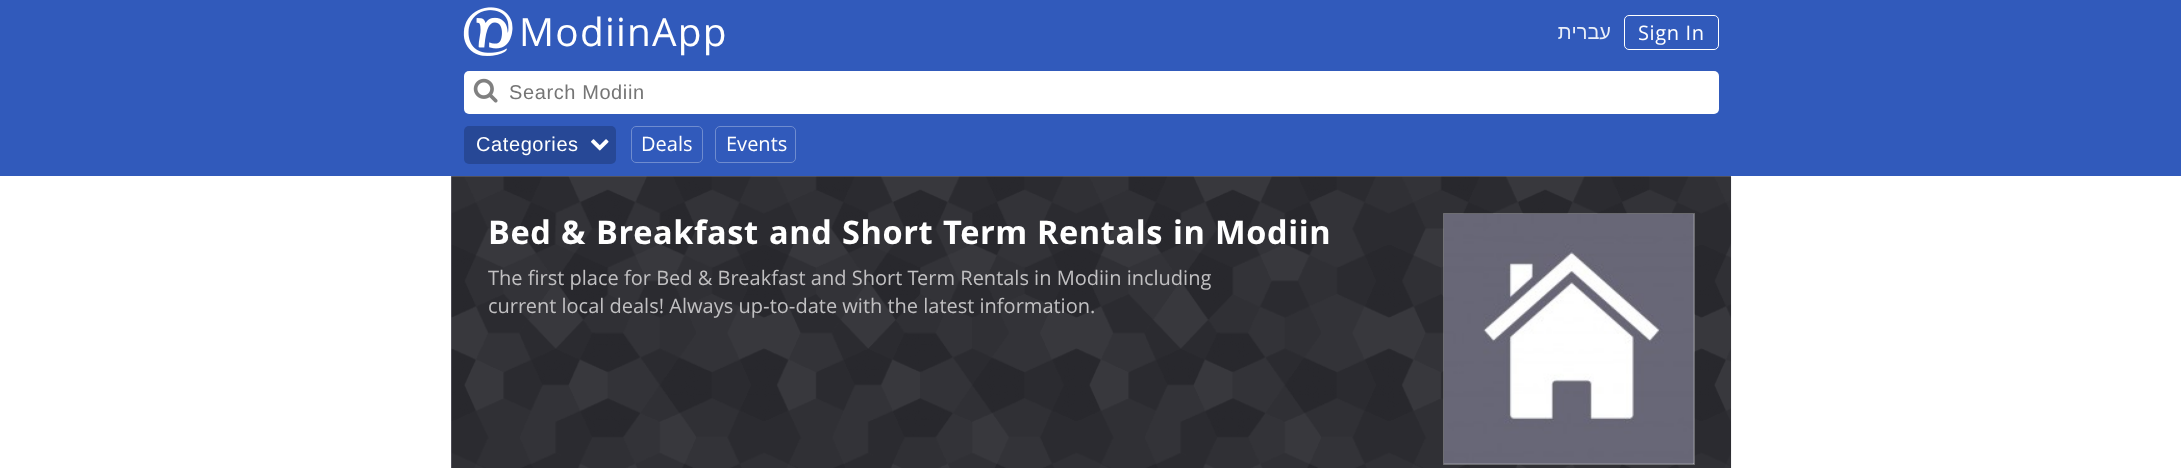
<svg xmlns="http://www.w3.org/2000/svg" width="2181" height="468">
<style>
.a{font:38.75px Arimo;letter-spacing:1.25px;fill:#fff}
.b{font:20px Arimo;direction:rtl;fill:#eaeff8}
.c{font:20px Arimo;letter-spacing:0.6px;fill:#fff}
.d{font:20px Liberation Sans;letter-spacing:0.6px;fill:#757575}
.e{font:20px Liberation Sans;letter-spacing:0.6px;fill:#fff}
.f{font:20px Arimo;fill:#fff}
.g{font:bold 32.5px Arimo;letter-spacing:0.6px;fill:#fff}
.h{font:20px Arimo;fill:#c1c0c2}
</style>
<rect width="100%" height="100%" fill="#fff"/>
<path fill="#315abb" d="M0 0h2181v176H0z"/>
<image href="1.png" x="463" y="7" width="50" height="49"/>
<rect fill="none" stroke="#fff" x="1624.5" y="15.5" width="94" height="34" rx="4.5"/>
<rect fill="#fff" x="464" y="71" width="1255" height="43" rx="5"/>
<image href="2.png" x="473" y="78" width="25" height="25"/>
<rect fill="#274896" x="464" y="126" width="152" height="38" rx="5"/>
<image href="3.png" x="591" y="139" width="18" height="12"/>
<rect fill="none" stroke="#6f8ccf" x="631.5" y="126.5" width="71" height="36" rx="4.5"/>
<rect fill="none" stroke="#6f8ccf" x="715.5" y="126.5" width="80" height="36" rx="4.5"/>
<path fill="#797787" d="M451 176h1280v292H451z"/>
<image href="4.png" x="451" y="176" width="1281" height="292"/>
<path fill="none" stroke="#ffffff4d" d="M1443.5 213.5h251v251H1443.5z"/>
<path fill="#efefef" d="M1444 214h250v250H1444z"/>
<image href="5.png" x="1444" y="214" width="250" height="250"/>
<image href="6.png" x="1444" y="214" width="250" height="250"/>
<text class="a" x="519" y="46">ModiinApp</text>
<text class="b" x="1611" y="39">עברית</text>
<text class="c" x="1638" y="40">Sign In</text>
<text class="d" x="509" y="99">Search Modiin</text>
<text class="e" x="476" y="151">Categories</text>
<text class="f" x="641" y="151">Deals</text>
<text class="f" x="726" y="151">Events</text>
<text class="g" x="488" y="244">Bed</text>
<text class="g" x="561" y="244">&amp;</text>
<text class="g" x="596" y="244">Breakfast</text>
<text class="g" x="769" y="244">and</text>
<text class="g" x="842" y="244">Short</text>
<text class="g" x="943" y="244">Term</text>
<text class="g" x="1037" y="244">Rentals</text>
<text class="g" x="1173" y="244">in</text>
<text class="g" x="1215" y="244">Modiin</text>
<text class="h" x="488" y="285">The first place for Bed &amp; Breakfast and Short Term Rentals in Modiin including</text>
<text class="h" x="488" y="313">current local deals! Always up-to-date with the latest information.</text>
</svg>
